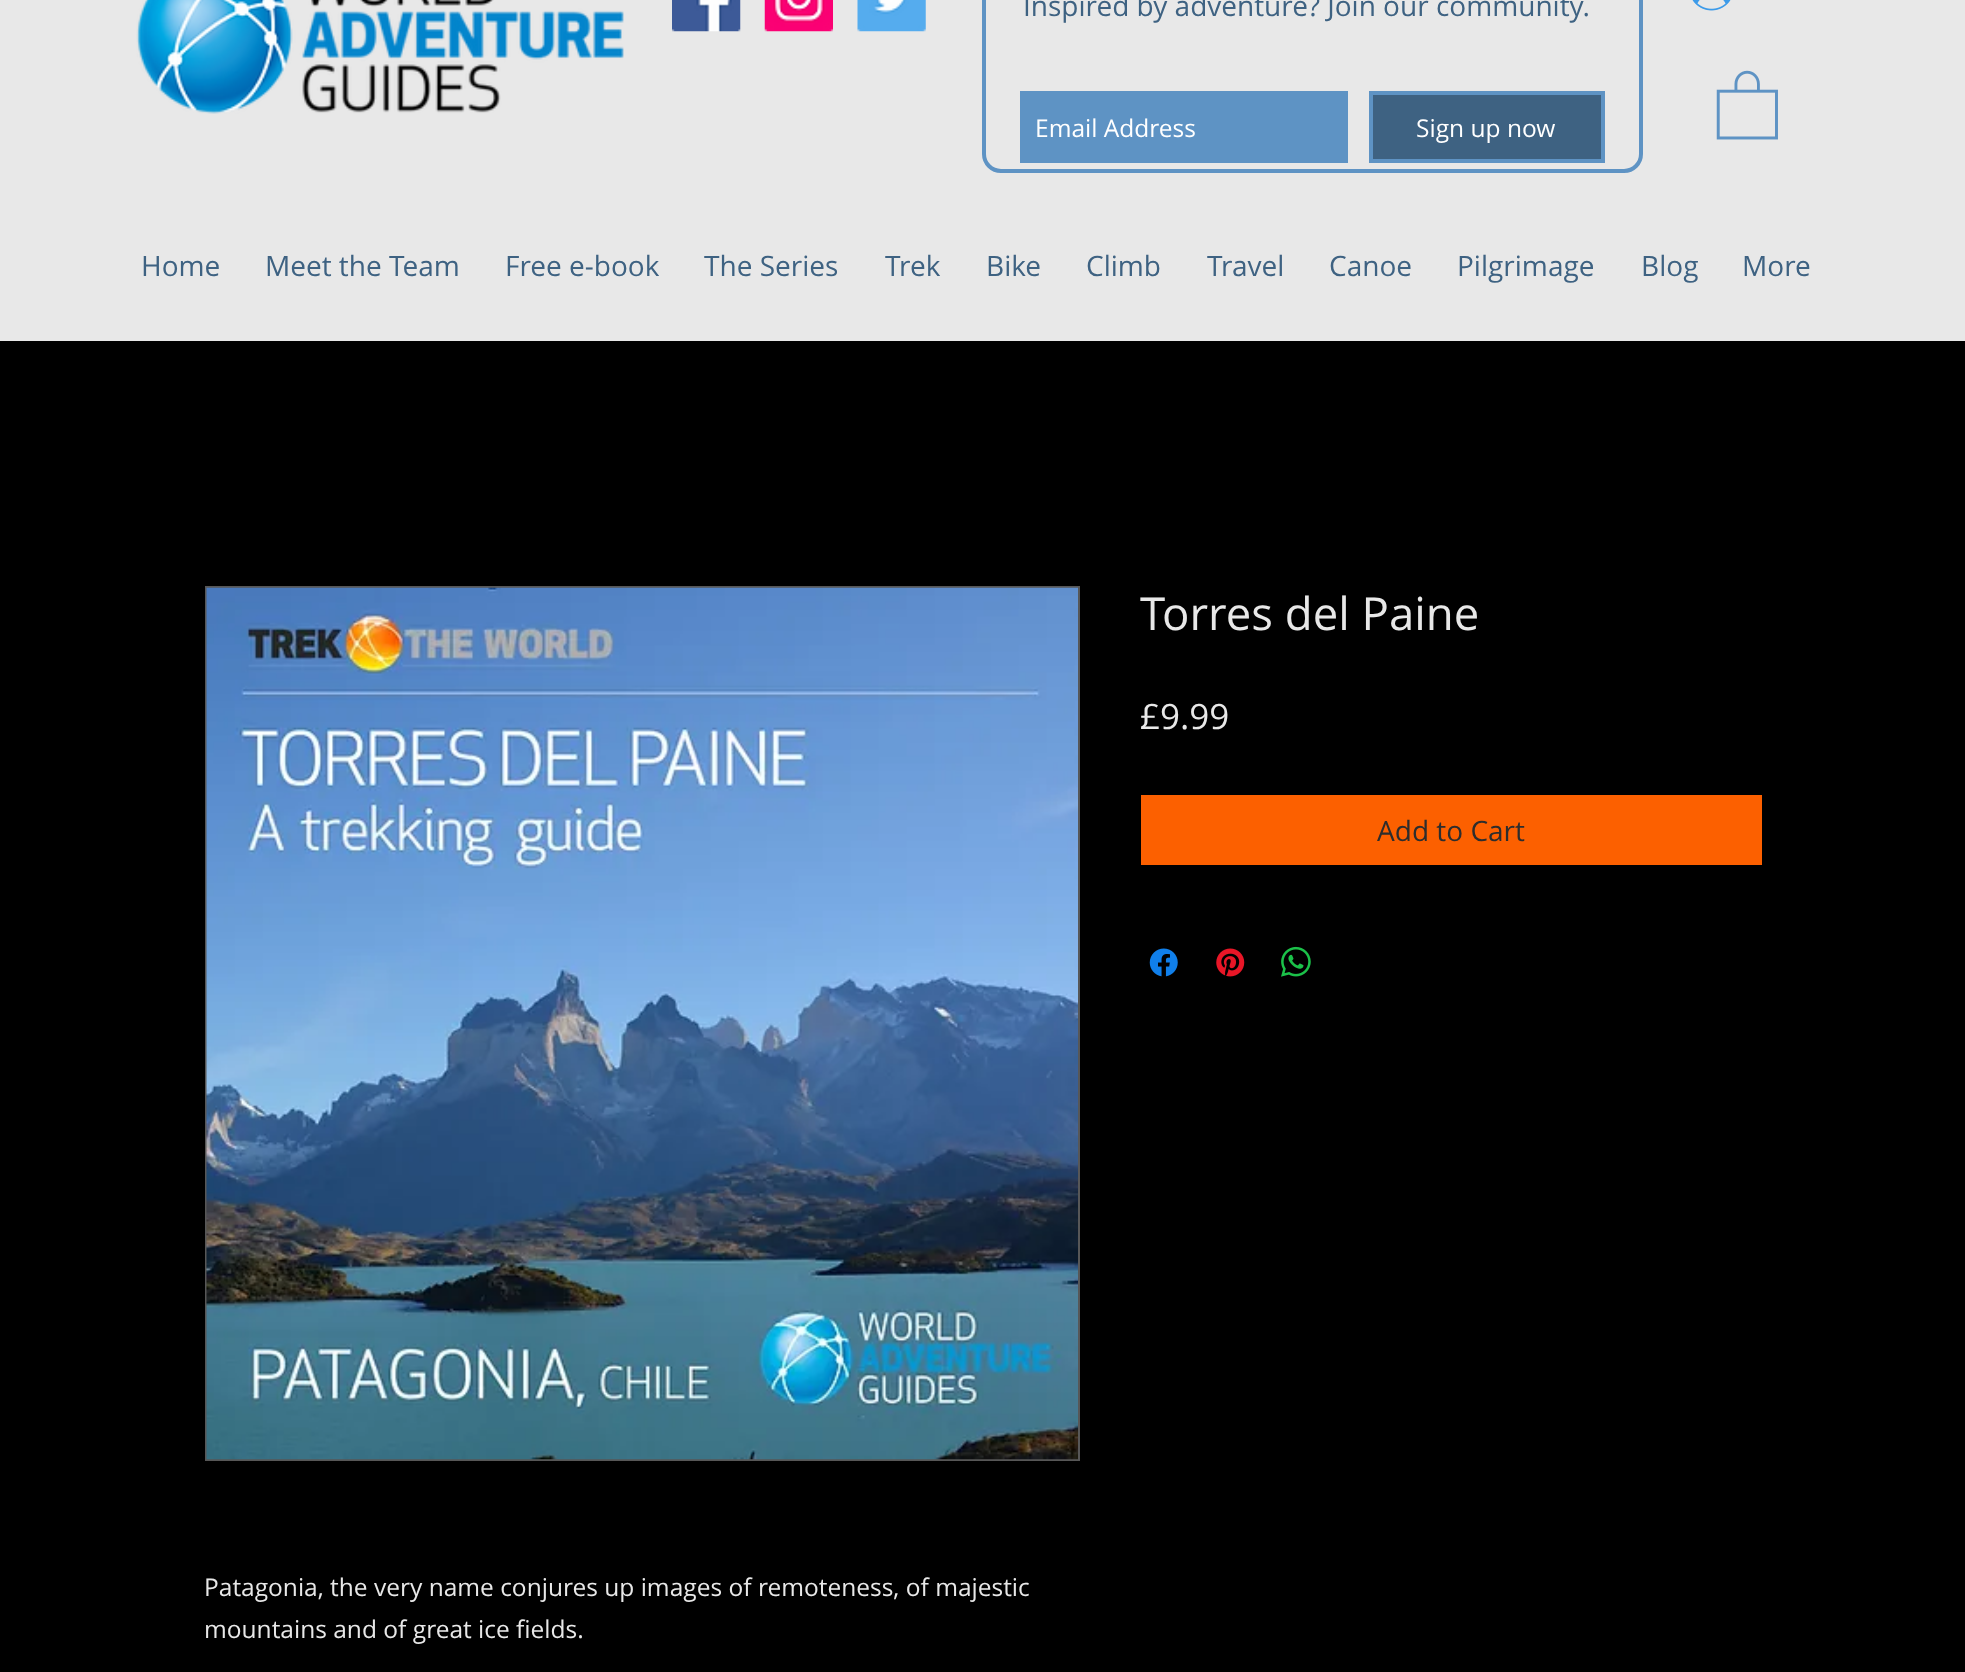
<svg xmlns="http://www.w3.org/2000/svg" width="1965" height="1672">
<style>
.a{font:28px Open Sans;fill:#3e6282}
.b{font:24.5px Open Sans;fill:#fff}
.c{font:45.5px Open Sans;fill:#e8e8e8}
.d{font:35px Open Sans;fill:#e8e8e8}
.e{font:28px Open Sans;fill:#2d2d2d}
.f{font:24.5px Open Sans;fill:#e8e8e8}
</style>
<rect width="100%" height="100%" fill="#000"/>
<path fill="#e8e8e8" d="M0 0h1965v341H0z"/>
<image href="1.png" x="136" y="0" width="488" height="114"/>
<image href="2.png" x="672" y="0" width="69" height="32"/>
<image href="3.png" x="764" y="0" width="69" height="32"/>
<image href="4.png" x="857" y="0" width="69" height="32"/>
<rect fill="none" stroke="#5e93c4" stroke-width="4" x="984" y="-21" width="657" height="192" rx="17"/>
<path fill="#5e93c4" d="M1020 91h328v72H1020z"/>
<path fill="#3e6282" stroke="#5e93c4" stroke-width="4" d="M1371 93h232v68H1371z"/>
<image href="5.png" x="1692" y="0" width="39" height="11"/>
<image href="6.png" x="1716" y="70" width="62" height="70"/>
<path fill="#fc6000" d="M1141 795h621v70H1141z"/>
<image href="7.png" x="1149" y="948" width="29" height="29"/>
<image href="8.png" x="1216" y="948" width="29" height="29"/>
<image href="9.png" x="1281" y="946" width="30" height="31"/>
<path fill="none" stroke="#575757" stroke-width="2" d="M206 587h873v873H206z"/>
<image href="10.png" x="206" y="587" width="872" height="873"/>
<text class="a" x="1023" y="16">Inspired by adventure? Join our community.</text>
<text class="b" x="1035" y="137">Email Address</text>
<text class="b" x="1416" y="137">Sign up now</text>
<text class="a" x="141" y="276">Home</text>
<text class="a" x="265" y="276">Meet the Team</text>
<text class="a" x="505" y="276">Free e-book</text>
<text class="a" x="704" y="276">The Series</text>
<text class="a" x="885" y="276">Trek</text>
<text class="a" x="986" y="276">Bike</text>
<text class="a" x="1086" y="276">Climb</text>
<text class="a" x="1207" y="276">Travel</text>
<text class="a" x="1329" y="276">Canoe</text>
<text class="a" x="1457" y="276">Pilgrimage</text>
<text class="a" x="1641" y="276">Blog</text>
<text class="a" x="1742" y="276">More</text>
<text class="c" x="1140" y="630">Torres del Paine</text>
<text class="d" x="1140" y="729">£9.99</text>
<text class="e" x="1377" y="841">Add to Cart</text>
<text class="f" x="204" y="1596">Patagonia, the very name conjures up images of remoteness, of majestic</text>
<text class="f" x="204" y="1638">mountains and of great ice fields.</text>
</svg>
